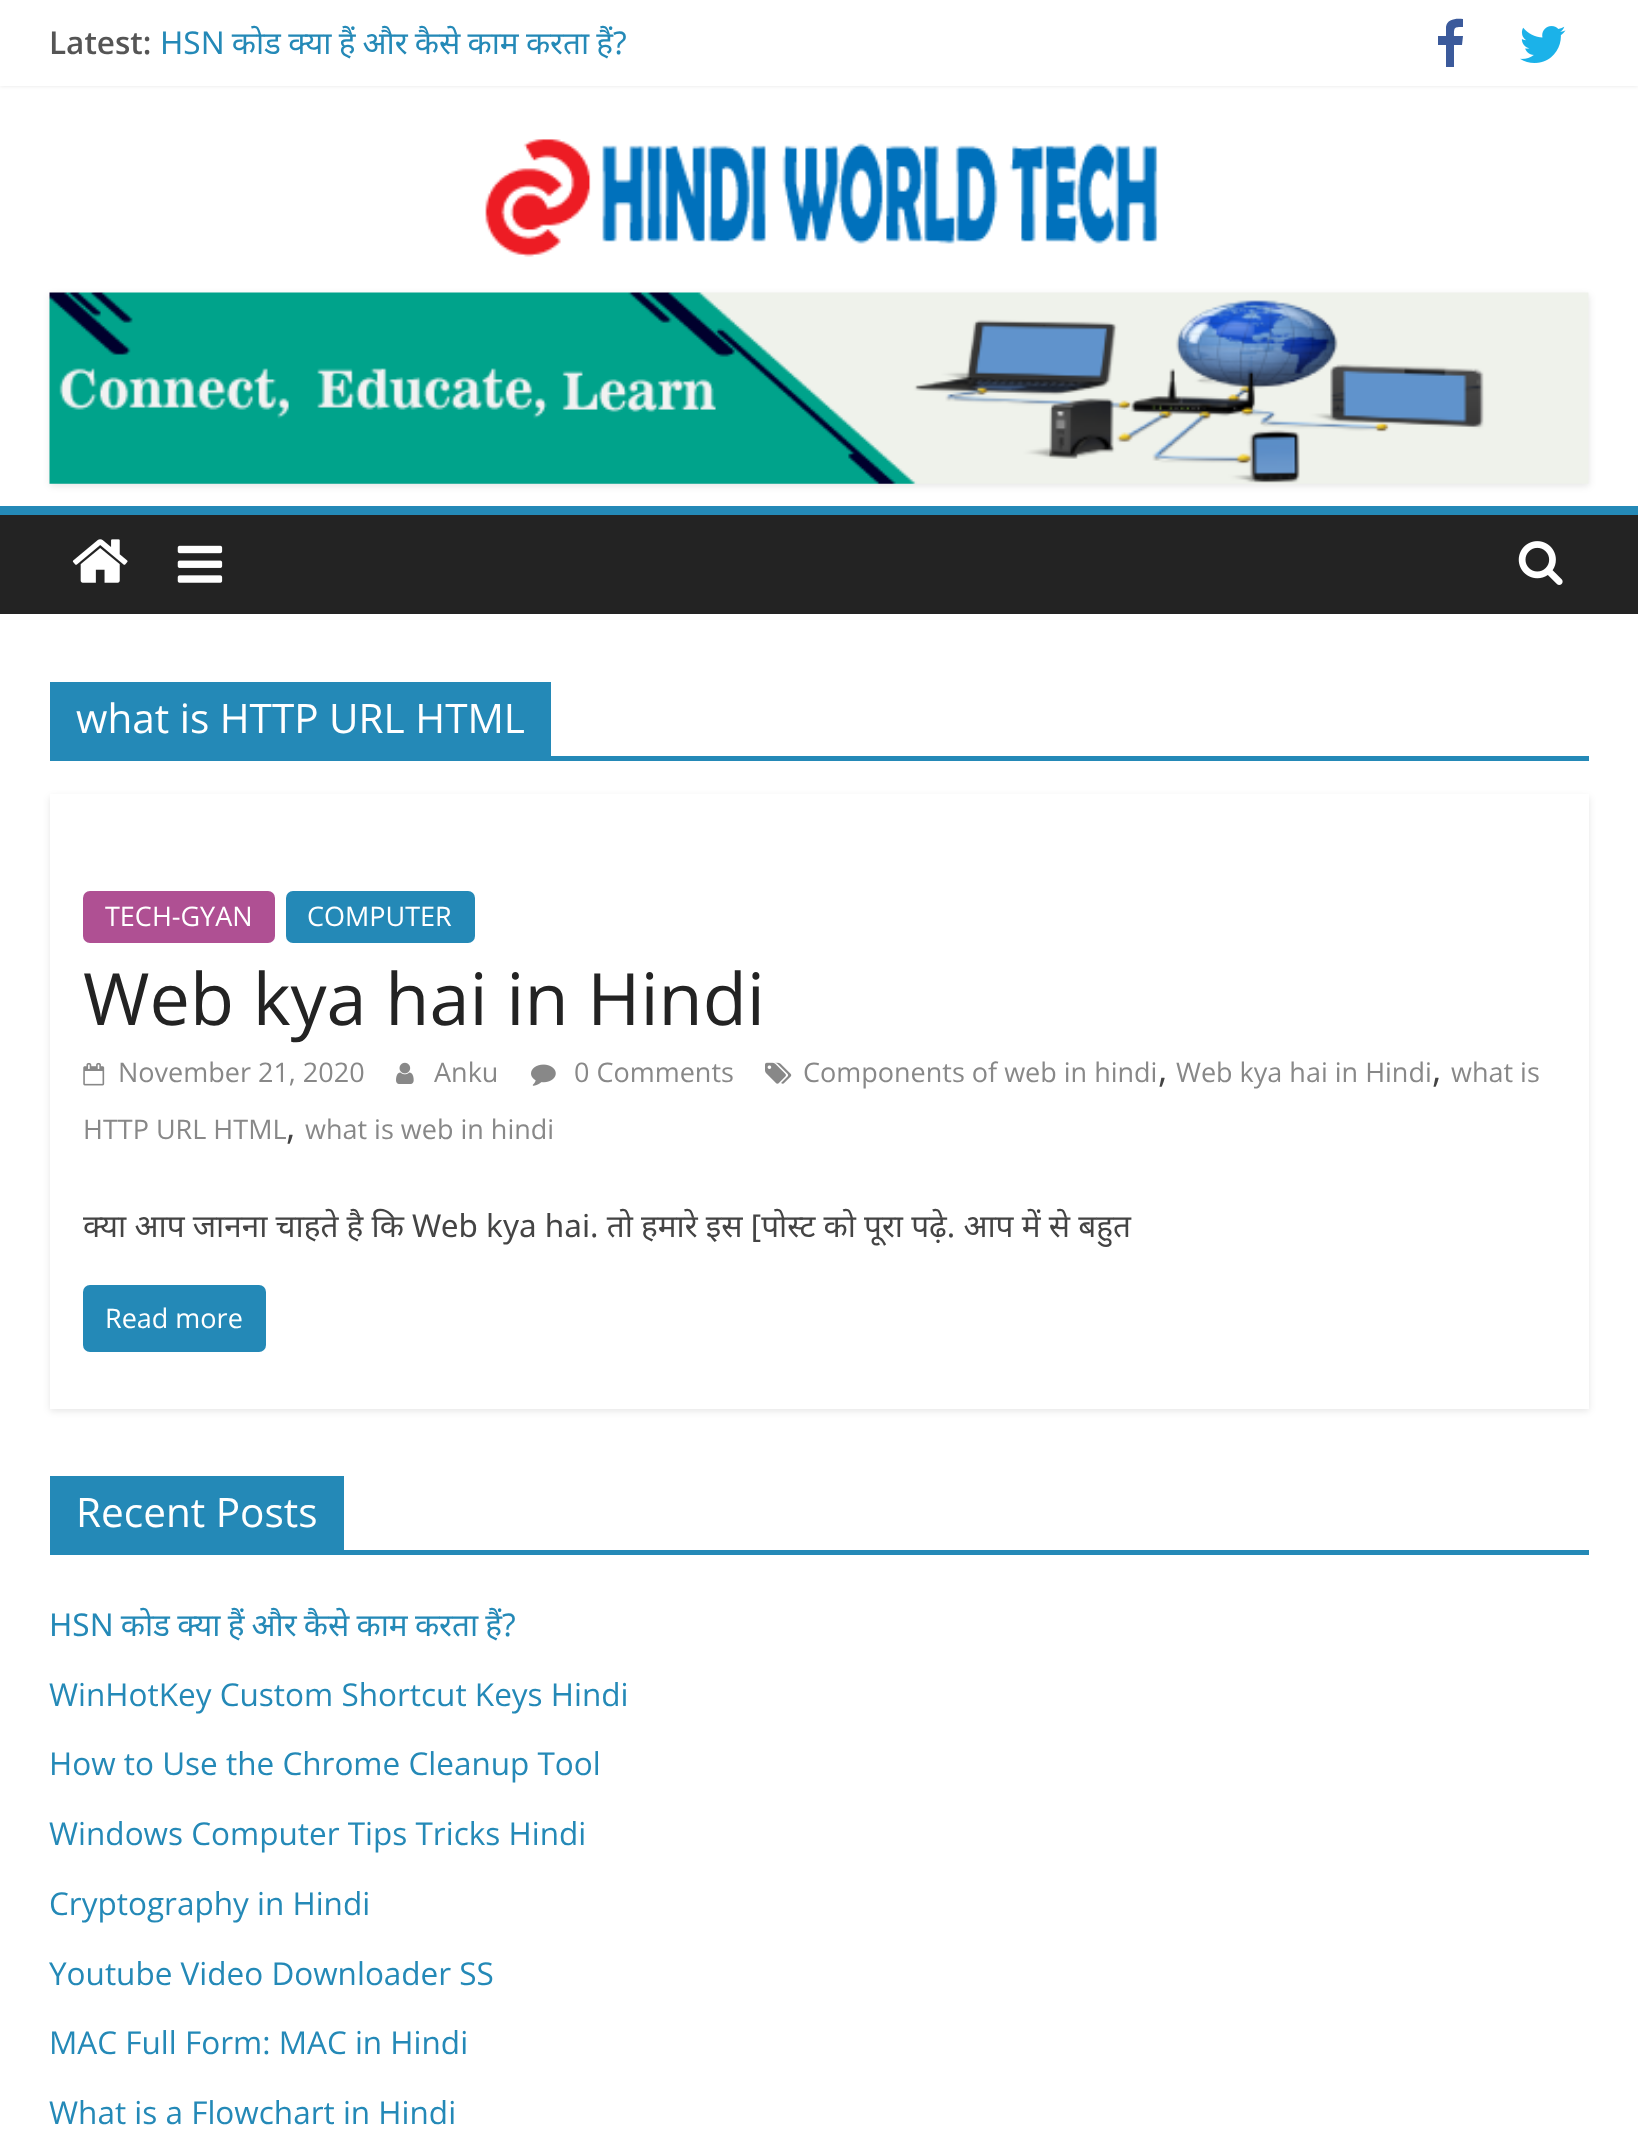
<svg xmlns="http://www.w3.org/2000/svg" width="1638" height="2139">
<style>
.a{font:600 31.5px Open Sans;fill:#555}
.b{font:31.5px Noto Sans;fill:#2489b7}
.c{font:40.5px Open Sans;fill:#fff}
.d{font:27px Open Sans;fill:#fff}
.e{font:72px Open Sans;fill:#232323}
.f{font:27px Open Sans;fill:#888}
.g{font:36px Open Sans;fill:#444}
.h{font:31.5px Noto Sans;fill:#444}
.i{font:31.5px Open Sans;fill:#2489b7}
</style>
<defs>
<clipPath id="clip1"><path d="M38 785h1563v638h-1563zm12 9h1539v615h-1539z" clip-rule="evenodd"/></clipPath>
</defs>
<rect width="100%" height="100%" fill="#fff"/>
<path fill="#0000001a" filter="blur(2px)" d="M0 0h1638v86H0z"/>
<path fill="#fff" d="M0 0h1638v86H0z"/>
<path fill="#3b5a9b" d="M1463 19v8c-9 0-9 0-9 9h9l-1 9h-8v22h-8v-22h-8v-9h8v-9c1-8 10-9 17-8z"/>
<image href="1.png" x="1520" y="26" width="46" height="37"/>
<image href="2.png" x="485" y="139" width="673" height="118"/>
<path fill="#0000001a" filter="blur(3.5px)" d="M50 295h1539v191H50z"/>
<image href="3.png" x="49" y="292" width="1540" height="192"/>
<path fill="#232323" d="M0 515h1638v99H0z"/>
<path fill="#2489b7" d="M0 506h1638v9H0z"/>
<image href="4.png" x="72" y="539" width="56" height="44"/>
<image href="5.png" x="177" y="545" width="46" height="38"/>
<image href="6.png" x="1518" y="541" width="45" height="44"/>
<path fill="#2489b7" d="M50 756h1539v5H50z"/>
<path fill="#2489b7" d="M50 682h501v74H50z"/>
<g clip-path="url(#clip1)">
<path fill="#0000001a" filter="blur(3.5px)" d="M50 797h1539v614H50z"/>
</g>
<rect fill="#af5093" x="83" y="891" width="192" height="52" rx="7"/>
<rect fill="#2489b7" x="286" y="891" width="189" height="52" rx="7"/>
<image href="7.png" x="765" y="1062" width="27" height="22"/>
<image href="8.png" x="83" y="1062" width="22" height="24"/>
<image href="9.png" x="396" y="1062" width="18" height="22"/>
<image href="10.png" x="531" y="1064" width="25" height="22"/>
<rect fill="#2489b7" x="83" y="1285" width="183" height="67" rx="7"/>
<path fill="#2489b7" d="M50 1550h1539v5H50z"/>
<path fill="#2489b7" d="M50 1476h294v74H50z"/>
<text class="a" x="49" y="54">Latest:</text>
<text class="b" x="160" y="54" word-spacing="-1">HSN कोड क्या हैं और कैसे काम करता हैं?</text>
<text class="c" x="76" y="733">what is HTTP URL HTML</text>
<text class="d" x="105" y="926">TECH-GYAN</text>
<text class="d" x="307" y="926">COMPUTER</text>
<text class="e" x="83" y="1025">Web kya hai in Hindi</text>
<text class="f" x="803" y="1082">Components of web in hindi</text>
<text class="g" x="1158" y="1082">,</text>
<text class="f" x="1176" y="1082">Web kya hai in Hindi</text>
<text class="g" x="1432" y="1082">,</text>
<text class="f" x="1451" y="1082">what is</text>
<text class="f" x="83" y="1139">HTTP URL HTML</text>
<text class="g" x="286" y="1139">,</text>
<text class="f" x="305" y="1139">what is web in hindi</text>
<text class="f" x="118" y="1082">November 21, 2020</text>
<text class="f" x="434" y="1082">Anku</text>
<text class="f" x="574" y="1082">0 Comments</text>
<text class="h" x="83" y="1237">क्या आप जानना चाहते है कि Web kya hai. तो हमारे इस [पोस्ट को पूरा पढ़े. आप में से बहुत</text>
<text class="d" x="105" y="1328">Read more</text>
<text class="c" x="76" y="1527">Recent Posts</text>
<text class="b" x="49" y="1636" word-spacing="-1">HSN कोड क्या हैं और कैसे काम करता हैं?</text>
<text class="i" x="49" y="1706">WinHotKey Custom Shortcut Keys Hindi</text>
<text class="i" x="49" y="1775">How to Use the Chrome Cleanup Tool</text>
<text class="i" x="49" y="1845">Windows Computer Tips Tricks Hindi</text>
<text class="i" x="49" y="1915">Cryptography in Hindi</text>
<text class="i" x="49" y="1985">Youtube Video Downloader SS</text>
<text class="i" x="49" y="2054">MAC Full Form: MAC in Hindi</text>
<text class="i" x="49" y="2124">What is a Flowchart in Hindi</text>
</svg>
